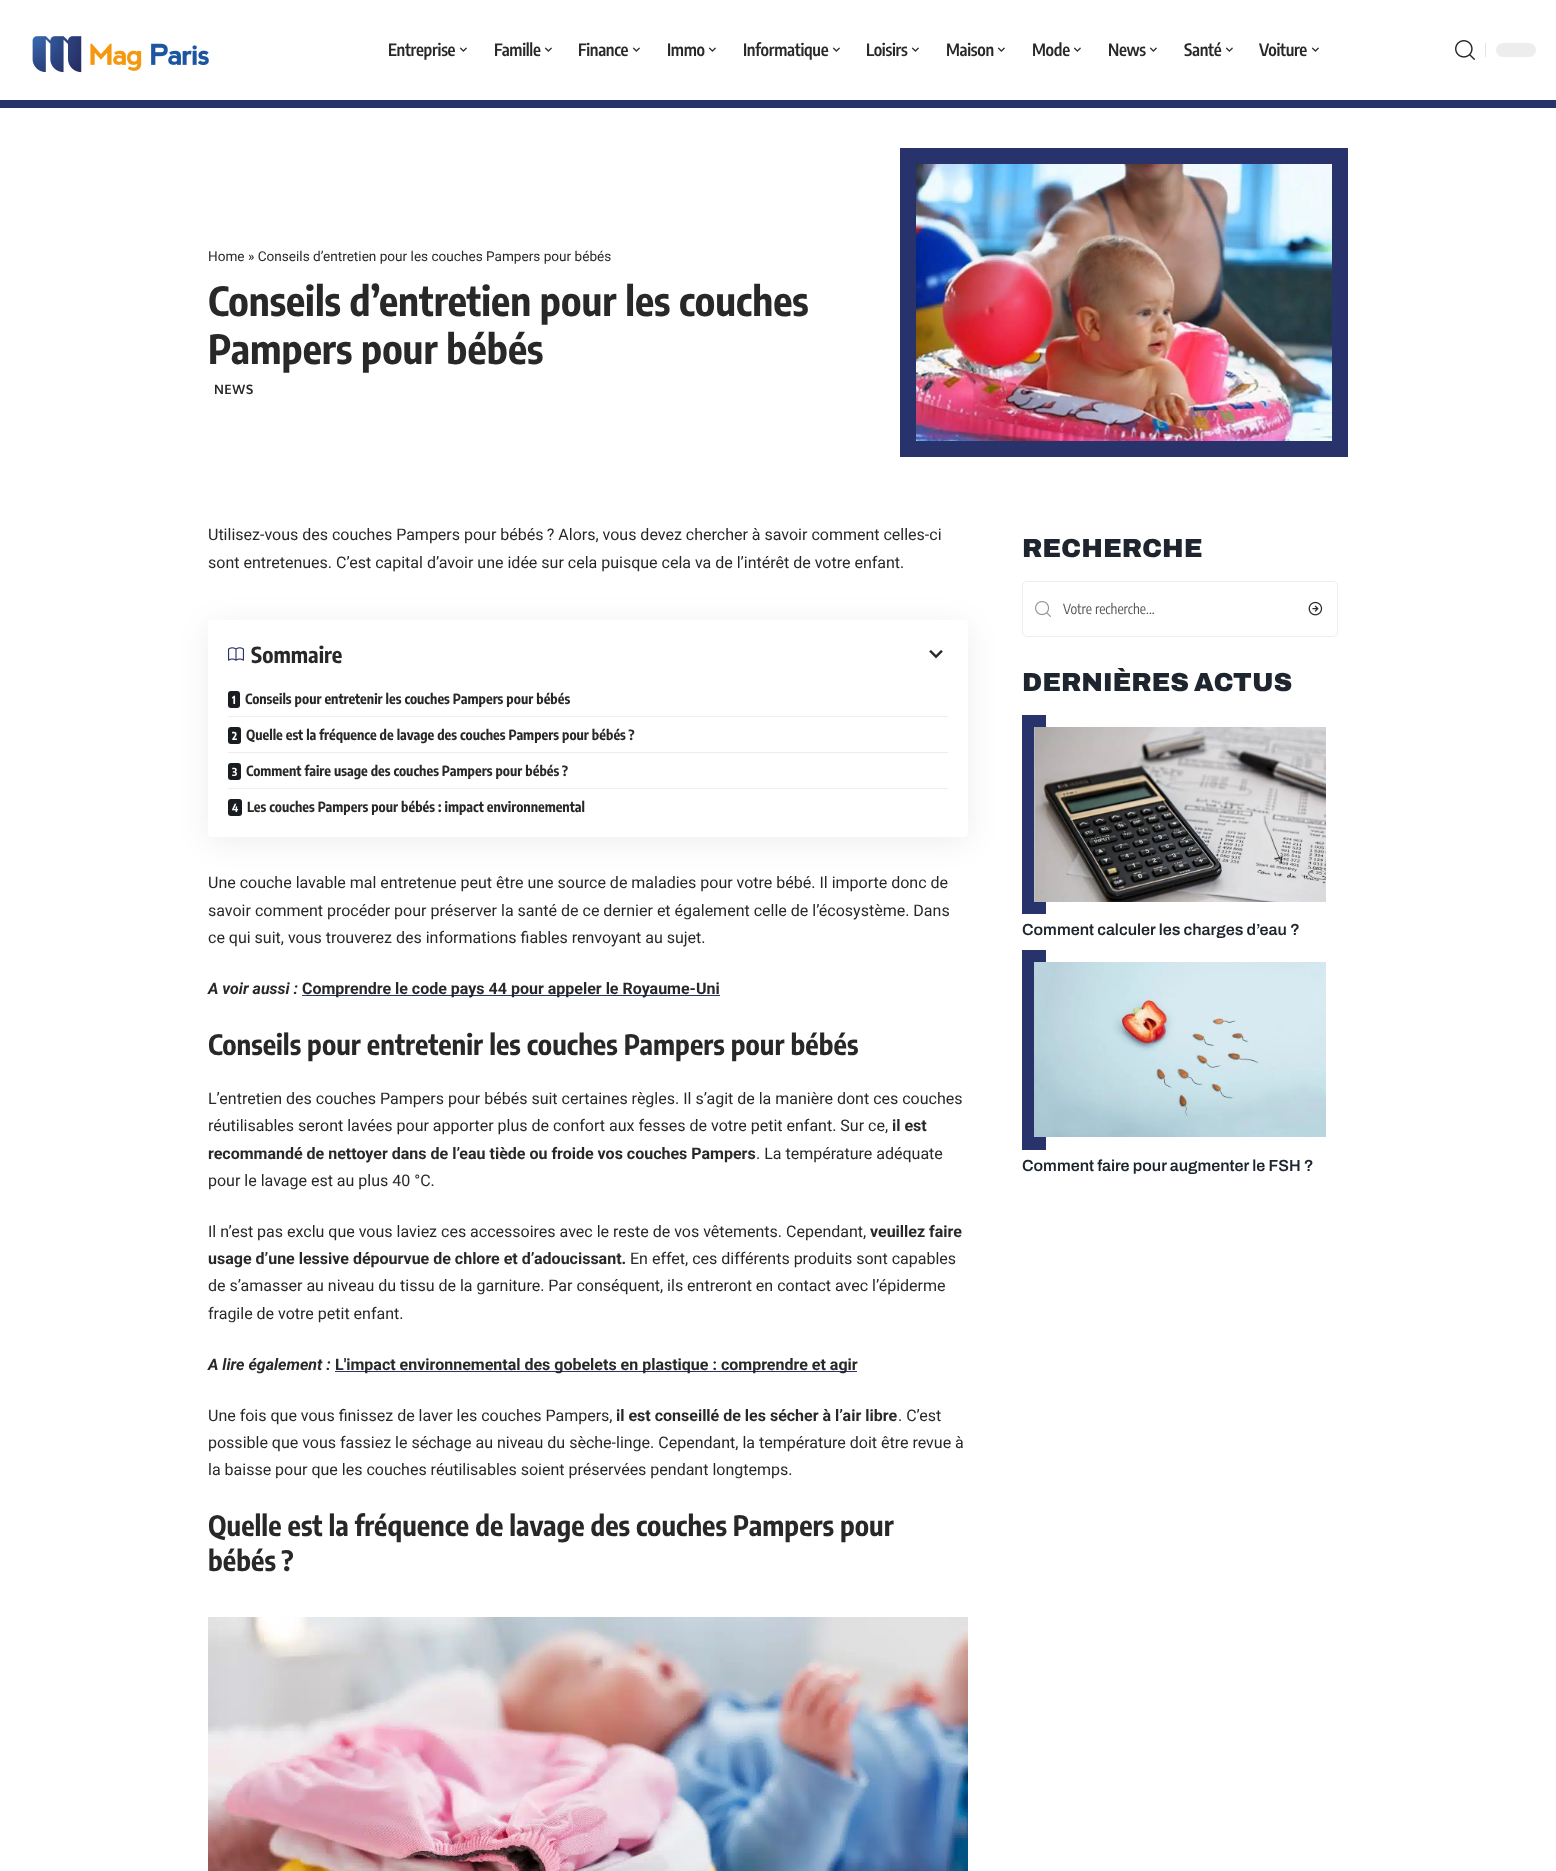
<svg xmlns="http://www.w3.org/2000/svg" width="1556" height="1871">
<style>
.a{font:600 17px Encode Sans Condensed;letter-spacing:-0.3px;fill:#282828}
.b{font:13.6px Roboto;fill:#282828}
.c{font:bold 40px Encode Sans Condensed;fill:#282828}
.d{font:bold 13px Oxygen;letter-spacing:0.5px;fill:#282828}
.e{font:16px Roboto;fill:#282828}
.f{font:bold 22px Encode Sans Condensed;fill:#282828}
.g{font:bold 11px Encode Sans Condensed;fill:#fff}
.h{font:bold 14px Encode Sans Condensed;fill:#282828}
.i{font:italic bold 16px Roboto;fill:#282828}
.j{font:bold 16px Roboto;fill:#282828}
.k{font:bold 28px Encode Sans Condensed;fill:#282828}
.l{font:900 26px Archivo;fill:#1e252e}
.m{font:14px Encode Sans Condensed;fill:#535353}
.n{font:600 16px Archivo;fill:#1e252e}
</style>
<defs>
<clipPath id="clip1"><path d="M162 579h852v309h-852zm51 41h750c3 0 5 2 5 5v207c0 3-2 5-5 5h-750c-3 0-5-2-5-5v-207c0-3 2-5 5-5z" clip-rule="evenodd"/></clipPath>
</defs>
<rect width="100%" height="100%" fill="#fff"/>
<path fill="#28336b" d="M0 100h1556v8H0z"/>
<image href="1.png" x="32" y="36" width="177" height="37"/>
<image href="2.png" x="459" y="47" width="8" height="5"/>
<image href="2.png" x="544" y="47" width="8" height="5"/>
<image href="2.png" x="632" y="47" width="8" height="5"/>
<image href="2.png" x="708" y="47" width="8" height="5"/>
<image href="2.png" x="832" y="47" width="8" height="5"/>
<image href="2.png" x="911" y="47" width="8" height="5"/>
<image href="2.png" x="997" y="47" width="8" height="5"/>
<image href="2.png" x="1073" y="47" width="8" height="5"/>
<image href="2.png" x="1149" y="47" width="8" height="5"/>
<image href="2.png" x="1225" y="47" width="8" height="5"/>
<image href="2.png" x="1311" y="47" width="8" height="5"/>
<image href="3.png" x="1455" y="40" width="20" height="20"/>
<path fill="#e4e4e4" d="M1485 43h1v14H1485z"/>
<rect fill="#ededed" x="1496" y="43" width="40" height="14" rx="7"/>
<path fill="none" stroke="#28336b" stroke-width="16" d="M908 156h432v293H908z"/>
<image href="4.png" x="916" y="164" width="416" height="277"/>
<g clip-path="url(#clip1)">
<rect fill="#00000012" filter="blur(15px)" x="208" y="625" width="760" height="217" rx="5"/>
</g>
<image href="5.png" x="228" y="647" width="16" height="14"/>
<image href="6.png" x="929" y="650" width="14" height="9"/>
<rect fill="#191c20" x="228" y="691" width="12" height="17" rx="3"/>
<path fill="#ededed" d="M228 716h720v1H228z"/>
<rect fill="#191c20" x="228" y="727" width="13" height="17" rx="3"/>
<path fill="#ededed" d="M228 752h720v1H228z"/>
<rect fill="#191c20" x="228" y="763" width="13" height="17" rx="3"/>
<path fill="#ededed" d="M228 788h720v1H228z"/>
<rect fill="#191c20" x="228" y="799" width="14" height="17" rx="3"/>
<path fill="#28336b" d="M302 995h418v1H302z"/>
<path fill="#28336b" d="M335 1371h522v1H335z"/>
<image href="7.png" x="208" y="1617" width="760" height="254"/>
<rect fill="none" stroke="#ededed" x="1022.5" y="581.5" width="315" height="55" rx="4.5"/>
<image href="8.png" x="1035" y="601" width="16" height="16"/>
<image href="9.png" x="1308" y="601" width="15" height="15"/>
<path fill="#28336b" d="M1022 715h24v199H1022z"/>
<image href="10.png" x="1034" y="727" width="292" height="175"/>
<path fill="#28336b" d="M1022 950h24v200H1022z"/>
<image href="11.png" x="1034" y="962" width="292" height="175"/>
<text class="a" x="388" y="56">Entreprise</text>
<text class="a" x="494" y="56">Famille</text>
<text class="a" x="578" y="56">Finance</text>
<text class="a" x="667" y="56">Immo</text>
<text class="a" x="743" y="56">Informatique</text>
<text class="a" x="866" y="56">Loisirs</text>
<text class="a" x="946" y="56">Maison</text>
<text class="a" x="1032" y="56">Mode</text>
<text class="a" x="1108" y="56">News</text>
<text class="a" x="1184" y="56">Santé</text>
<text class="a" x="1259" y="56">Voiture</text>
<text class="b" x="208" y="261">Home » Conseils d’entretien pour les couches Pampers pour bébés</text>
<text class="c" x="208" y="316">Conseils d’entretien pour les couches</text>
<text class="c" x="208" y="364">Pampers pour bébés</text>
<text class="d" x="214" y="394">NEWS</text>
<text class="e" x="208" y="540">Utilisez-vous des couches Pampers pour bébés ? Alors, vous devez chercher à savoir comment celles-ci</text>
<text class="e" x="208" y="568">sont entretenues. C’est capital d’avoir une idée sur cela puisque cela va de l’intérêt de votre enfant.</text>
<text class="f" x="251" y="663">Sommaire</text>
<text class="g" x="232" y="704">1</text>
<text class="h" x="245" y="704">Conseils pour entretenir les couches Pampers pour bébés</text>
<text class="g" x="232" y="740">2</text>
<text class="h" x="246" y="740">Quelle est la fréquence de lavage des couches Pampers pour bébés ?</text>
<text class="g" x="232" y="776">3</text>
<text class="h" x="246" y="776">Comment faire usage des couches Pampers pour bébés ?</text>
<text class="g" x="232" y="812">4</text>
<text class="h" x="247" y="812">Les couches Pampers pour bébés : impact environnemental</text>
<text class="e" x="208" y="888">Une couche lavable mal entretenue peut être une source de maladies pour votre bébé. Il importe donc de</text>
<text class="e" x="208" y="916">savoir comment procéder pour préserver la santé de ce dernier et également celle de l’écosystème. Dans</text>
<text class="e" x="208" y="943">ce qui suit, vous trouverez des informations fiables renvoyant au sujet.</text>
<text class="i" x="208" y="994">A voir aussi :</text>
<text class="j" x="302" y="994">Comprendre le code pays 44 pour appeler le Royaume-Uni</text>
<text class="k" x="208" y="1055">Conseils pour entretenir les couches Pampers pour bébés</text>
<text class="e" x="208" y="1104">L’entretien des couches Pampers pour bébés suit certaines règles. Il s’agit de la manière dont ces couches</text>
<text class="e" x="208" y="1131">réutilisables seront lavées pour apporter plus de confort aux fesses de votre petit enfant. Sur ce,</text>
<text class="j" x="892" y="1131">il est</text>
<text class="j" x="208" y="1159">recommandé de nettoyer dans de l’eau tiède ou froide vos couches Pampers</text>
<text class="e" x="756" y="1159">. La température adéquate</text>
<text class="e" x="208" y="1186">pour le lavage est au plus 40 °C.</text>
<text class="e" x="208" y="1237">Il n’est pas exclu que vous laviez ces accessoires avec le reste de vos vêtements. Cependant,</text>
<text class="j" x="870" y="1237">veuillez faire</text>
<text class="j" x="208" y="1264">usage d’une lessive dépourvue de chlore et d’adoucissant.</text>
<text class="e" x="630" y="1264">En effet, ces différents produits sont capables</text>
<text class="e" x="208" y="1291">de s’amasser au niveau du tissu de la garniture. Par conséquent, ils entreront en contact avec l’épiderme</text>
<text class="e" x="208" y="1319">fragile de votre petit enfant.</text>
<text class="i" x="208" y="1370">A lire également :</text>
<text class="j" x="335" y="1370">L'impact environnemental des gobelets en plastique : comprendre et agir</text>
<text class="e" x="208" y="1421">Une fois que vous finissez de laver les couches Pampers,</text>
<text class="j" x="616" y="1421">il est conseillé de les sécher à l’air libre</text>
<text class="e" x="898" y="1421">. C’est</text>
<text class="e" x="208" y="1448">possible que vous fassiez le séchage au niveau du sèche-linge. Cependant, la température doit être revue à</text>
<text class="e" x="208" y="1475">la baisse pour que les couches réutilisables soient préservées pendant longtemps.</text>
<text class="k" x="208" y="1536">Quelle est la fréquence de lavage des couches Pampers pour</text>
<text class="k" x="208" y="1571">bébés ?</text>
<text class="l" x="1022" y="557">RECHERCHE</text>
<text class="m" x="1063" y="614">Votre recherche...</text>
<text class="l" x="1022" y="691">DERNIÈRES ACTUS</text>
<text class="n" x="1022" y="935">Comment calculer les charges d’eau ?</text>
<text class="n" x="1022" y="1171">Comment faire pour augmenter le FSH ?</text>
</svg>
